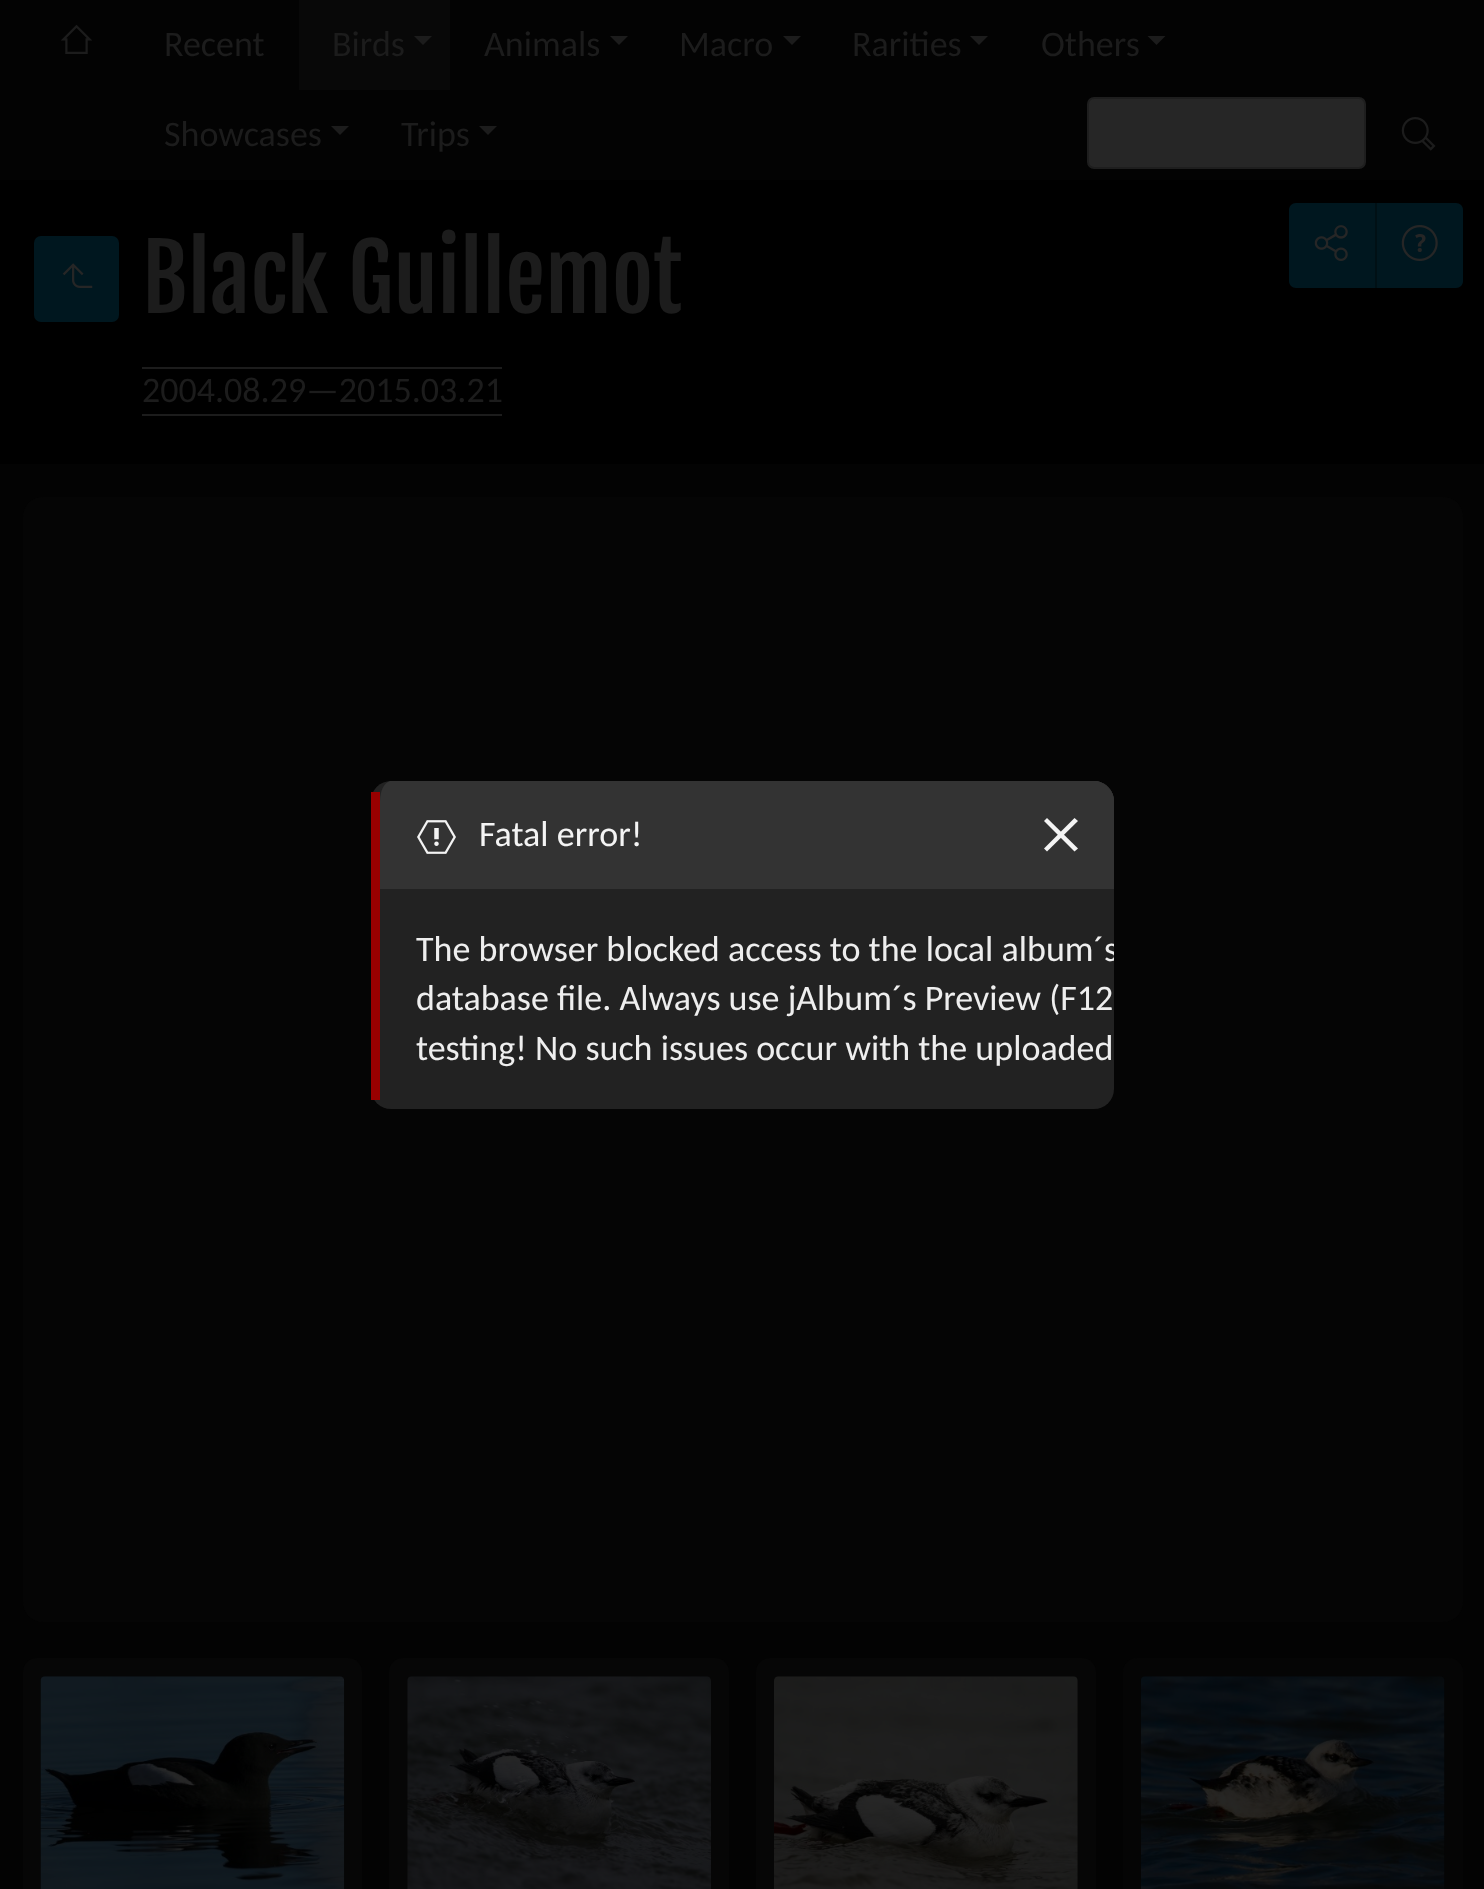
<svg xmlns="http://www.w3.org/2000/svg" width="1484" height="1889">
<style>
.a{font:36px Carlito;fill:#1c1c1c}
.b{font:90px Fjalla One;fill:#1c1c1c}
.c{font:36px Carlito;fill:#f4f4f4}
.d{font:36px Carlito;fill:#eee}
</style>
<defs>
<clipPath id="clip1"><path d="M391.5 781h702c11 0 20.5 9 20.5 20v288c0 11-9.5 20-20.5 20h-702c-6 0-11.5-9-11.5-20v-288c0-11 5.5-20 11.5-20z"/></clipPath>
</defs>
<rect width="100%" height="100%" fill="#030303"/>
<image href="1.png" x="60" y="24" width="33" height="30"/>
<path fill="#080808" d="M299 0h151v90H299z"/>
<path fill="#1c1c1c" d="M414 36h18l-9 9z"/>
<path fill="#1c1c1c" d="M610 36h18l-9 9z"/>
<path fill="#1c1c1c" d="M783 36h18l-9 9z"/>
<path fill="#1c1c1c" d="M970 36h18l-9 9z"/>
<path fill="#1c1c1c" d="M1147.5 36h18l-9 9z"/>
<path fill="#1c1c1c" d="M331 126h18l-9 9z"/>
<path fill="#1c1c1c" d="M479 126h18l-9 9z"/>
<rect fill="#262626" stroke="#1e1e1e" stroke-width="2" x="1088" y="98" width="277" height="70" rx="6"/>
<image href="2.png" x="1401" y="117" width="35" height="34"/>
<path fill="#000" d="M0 180h1484v284H0z"/>
<rect fill="#00171f" x="34" y="236" width="85" height="86" rx="7"/>
<image href="3.png" x="62" y="263" width="31" height="25"/>
<path fill="#1c1c1c" d="M142 367h360v2H142z"/>
<path fill="#1c1c1c" d="M142 414h360v2H142z"/>
<path fill="#00171f" d="M1296 203h79v85h-79c-4 0-7-3-7-7v-71c0-4 3-7 7-7z"/>
<image href="4.png" x="1314" y="225" width="34" height="36"/>
<path fill="#00171f" d="M1375 203h81c4 0 7 3 7 7v71c0 4-3 7-7 7h-81z"/>
<path fill="#001015" d="M1375 203h2v85H1375z"/>
<image href="5.png" x="1401" y="225" width="37" height="36"/>
<rect fill="#0a0a0a66" x="23" y="497" width="1440" height="1125" rx="20"/>
<rect fill="#060606" x="23" y="1658" width="339" height="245" rx="14"/>
<image href="6.png" x="40" y="1676" width="305" height="213"/>
<rect fill="#060606" x="389" y="1658" width="340" height="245" rx="14"/>
<image href="7.png" x="407" y="1676" width="304" height="213"/>
<rect fill="#060606" x="756" y="1658" width="340" height="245" rx="14"/>
<image href="8.png" x="774" y="1676" width="304" height="213"/>
<rect fill="#0a0a0a66" x="1123" y="1658" width="340" height="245" rx="14"/>
<image href="9.png" x="1140" y="1676" width="305" height="213"/>
<rect fill="#222" x="371" y="781" width="743" height="328" rx="20"/>
<path fill="#900" d="M371 792h9v308H371z"/>
<path fill="#333" d="M380 889v-88c0-10 4-18 10-20h707c9 2 17 10 17 20v88z"/>
<image href="10.png" x="417" y="820" width="39" height="34"/>
<path fill="#333" d="M1006 781h91c9 2 17 10 17 20v88h-108z"/>
<path fill="#f4f4f4" d="M1074.5 818l3.5 3l-31 30.5l-3-3z"/>
<path fill="#f4f4f4" d="M1044 821l3-3l31 30.5l-3.5 3z"/>
<text class="a" x="164" y="56">Recent</text>
<text class="a" x="332" y="56">Birds</text>
<text class="a" x="484" y="56">Animals</text>
<text class="a" x="679" y="56">Macro</text>
<text class="a" x="852" y="56">Rarities</text>
<text class="a" x="1041" y="56">Others</text>
<text class="a" x="164" y="146">Showcases</text>
<text class="a" x="401" y="146">Trips</text>
<text class="b" x="142" y="313">Black Guillemot</text>
<text class="a" x="142" y="402">2004.08.29—2015.03.21</text>
<text class="c" x="479" y="846">Fatal error!</text>
<g clip-path="url(#clip1)">
<text class="d" x="416" y="961">The browser blocked access to the local album´s</text>
</g>
<text class="d" x="416" y="1010">database file. Always use jAlbum´s Preview (F12</text>
<text class="d" x="416" y="1060">testing! No such issues occur with the uploaded</text>
</svg>
